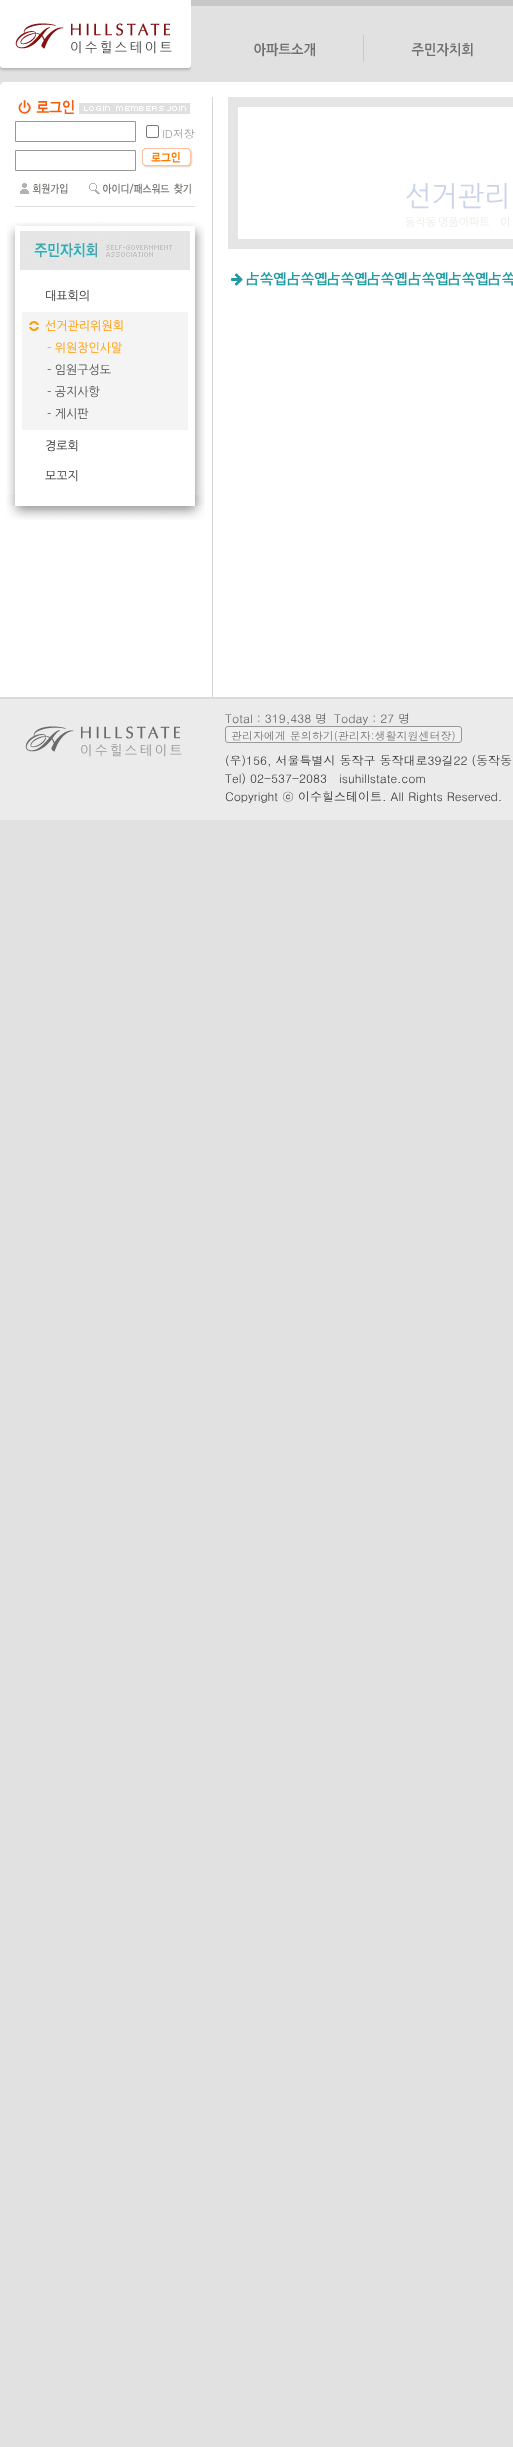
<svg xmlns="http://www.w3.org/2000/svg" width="513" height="2447">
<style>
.a{font:11px Dotum;fill:#9c9c9c}
.b{font:12px NanumGothic;fill:#333}
.c{font:12px NanumGothic;fill:#f90}
.d{font:12px NanumGothic;fill:#505050}
.e{font:28px 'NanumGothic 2';fill:#cad5e9}
.f{font:11px 'NanumGothic 2';fill:#ececec}
.g{font:bold 14px WenQuanYi Zen Hei;fill:#209ba3}
.h{font:bold 14px NanumGothic;fill:#209ba3}
.i{font:12px Dotum;fill:#606060}
.j{font:11px Dotum;fill:#757575}
.k{font:12px Dotum;fill:#333}
</style>
<rect width="100%" height="100%" fill="#e1e1e1"/>
<path fill="#c7c7c7" d="M191 0h322v6H191z"/>
<image href="1.png" x="0" y="0" width="191" height="72"/>
<image href="2.png" x="15" y="23" width="157" height="31"/>
<path fill="#c9c9c9" d="M363 35h1v27H363z"/>
<image href="3.png" x="254" y="43" width="61" height="14"/>
<image href="4.png" x="411" y="43" width="62" height="14"/>
<path fill="#fff" d="M4 82h509c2 0 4 2 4 4v734h-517v-734c0-2 2-4 4-4z"/>
<path fill="#dfdfdf" d="M15 206h180v1H15z"/>
<image href="5.png" x="18" y="100" width="172" height="14"/>
<path fill="none" stroke="#989898" d="M15.5 121.5h120v20H15.5z"/>
<rect fill="none" stroke="#767676" x="146.5" y="125.5" width="12" height="12" rx="1.5"/>
<path fill="none" stroke="#989898" d="M15.5 150.5h120v20H15.5z"/>
<image href="6.png" x="142" y="148" width="51" height="20"/>
<image href="7.png" x="20" y="183" width="48" height="11"/>
<image href="8.png" x="89" y="183" width="102" height="11"/>
<image href="9.png" x="7" y="222" width="198" height="48"/>
<image href="10.png" x="20" y="231" width="152" height="32"/>
<image href="11.png" x="7" y="270" width="198" height="220"/>
<path fill="#f4f4f4" d="M22 312h166v118H22z"/>
<image href="12.png" x="29" y="321" width="10" height="10"/>
<image href="13.png" x="6" y="490" width="199" height="30"/>
<path fill="#d6d6d6" d="M212 97h1v600H212z"/>
<path fill="none" stroke="#e5e5e5" stroke-width="10" d="M233 102h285v142H233z"/>
<image href="14.png" x="231" y="273" width="12" height="13"/>
<path fill="#ebebeb" d="M0 699h513v121H0z"/>
<path fill="#d9dbdd" d="M0 697h513v2H0z"/>
<image href="15.png" x="25" y="726" width="157" height="31"/>
<rect fill="#f0f0f0" stroke="#999" x="225.5" y="726.5" width="236" height="16" rx="2.5"/>
<text class="a" x="162" y="138">ID저장</text>
<text class="b" x="45" y="300">대표회의</text>
<text class="c" x="45" y="330">선거관리위원회</text>
<text class="c" x="47" y="352">- 위원장인사말</text>
<text class="d" x="47" y="374">- 임원구성도</text>
<text class="d" x="47" y="396">- 공지사항</text>
<text class="d" x="47" y="418">- 게시판</text>
<text class="b" x="45" y="450">경로회</text>
<text class="b" x="45" y="480">모꼬지</text>
<text class="e" x="405" y="206">선거관리</text>
<text class="f" x="405" y="226" word-spacing="-1">동작동 명품아파트</text>
<text class="f" x="500" y="226" word-spacing="-1">이</text>
<text class="g" x="246" y="284">占</text>
<text class="h" x="260" y="284">쏙옙</text>
<text class="g" x="287" y="284">占</text>
<text class="h" x="301" y="284">쏙옙</text>
<text class="g" x="327" y="284">占</text>
<text class="h" x="341" y="284">쏙옙</text>
<text class="g" x="367" y="284">占</text>
<text class="h" x="381" y="284">쏙옙</text>
<text class="g" x="408" y="284">占</text>
<text class="h" x="422" y="284">쏙옙</text>
<text class="g" x="448" y="284">占</text>
<text class="h" x="462" y="284">쏙옙</text>
<text class="g" x="488" y="284">占</text>
<text class="h" x="502" y="284">쏙</text>
<text class="i" x="225" y="723">Total : 319,438 명</text>
<text class="i" x="334" y="723">Today : 27 명</text>
<text class="j" x="231" y="740">관리자에게 문의하기(관리자:생활지원센터장)</text>
<text class="k" x="225" y="765">(우)156, 서울특별시 동작구 동작대로39길22 (동작동</text>
<text class="k" xml:space="preserve" x="225" y="783">Tel) 02-537-2083   isuhillstate.com</text>
<text class="k" x="225" y="801">Copyright ⓒ 이수힐스테이트. All Rights Reserved.</text>
</svg>
